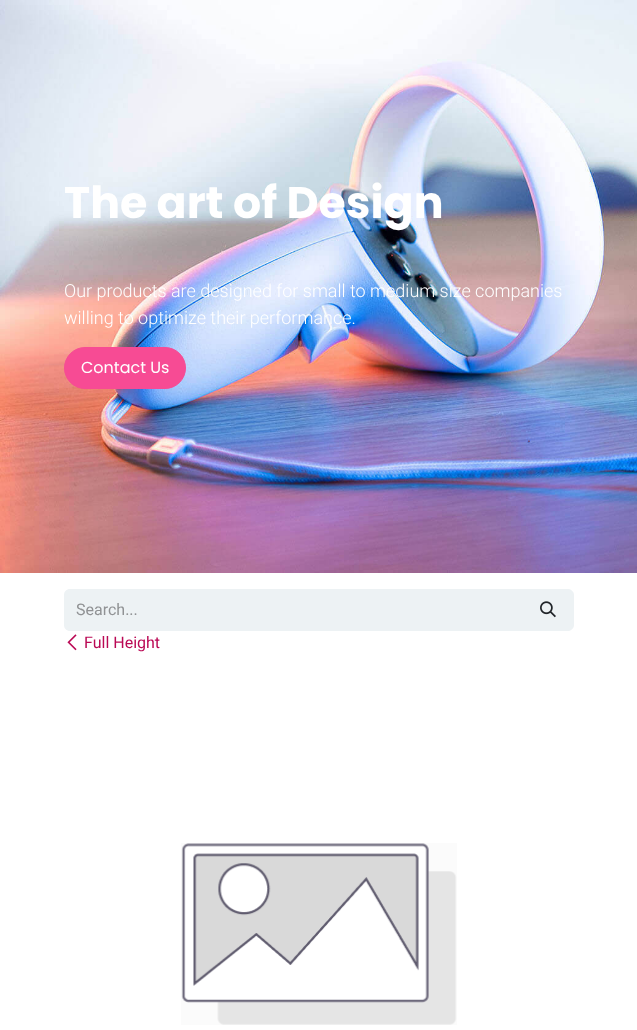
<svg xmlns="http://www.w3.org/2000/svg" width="637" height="1030">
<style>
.a{font:bold 44.25px Poppins;fill:#fff}
.b{font:300 18px Roboto;fill:#fff}
.c{font:16px Poppins;fill:#fff}
.d{font:16px Roboto;fill:#909294}
.e{font:16px Roboto;fill:#ba0854}
</style>
<rect width="100%" height="100%" fill="#fff"/>
<image href="1.png" x="0" y="0" width="637" height="573"/>
<rect fill="#f74b94" stroke="#f74b94" x="64.5" y="347.5" width="121" height="41" rx="20.5"/>
<path fill="#edf2f4" d="M70 589h454v42h-454c-3.5 0-6-2.5-6-6v-30c0-3.5 2.5-6 6-6z"/>
<path fill="#edf2f4" stroke="#edf2f4" d="M523.5 589.5h44.5c3 0 5.5 2.5 5.5 5.5v30c0 3-2.5 5.5-5.5 5.5h-44.5z"/>
<image href="2.png" x="540" y="601" width="16" height="17"/>
<image href="3.png" x="67" y="634" width="10" height="17"/>
<image href="4.png" x="181" y="843" width="276" height="182"/>
<text class="a" x="64" y="218">The art of Design</text>
<text class="b" x="64" y="297">Our products are designed for small to medium size companies</text>
<text class="b" x="64" y="324">willing to optimize their performance.</text>
<text class="c" x="81" y="373">Contact Us</text>
<text class="d" x="76" y="615">Search...</text>
<text class="e" x="84" y="648">Full Height</text>
</svg>
